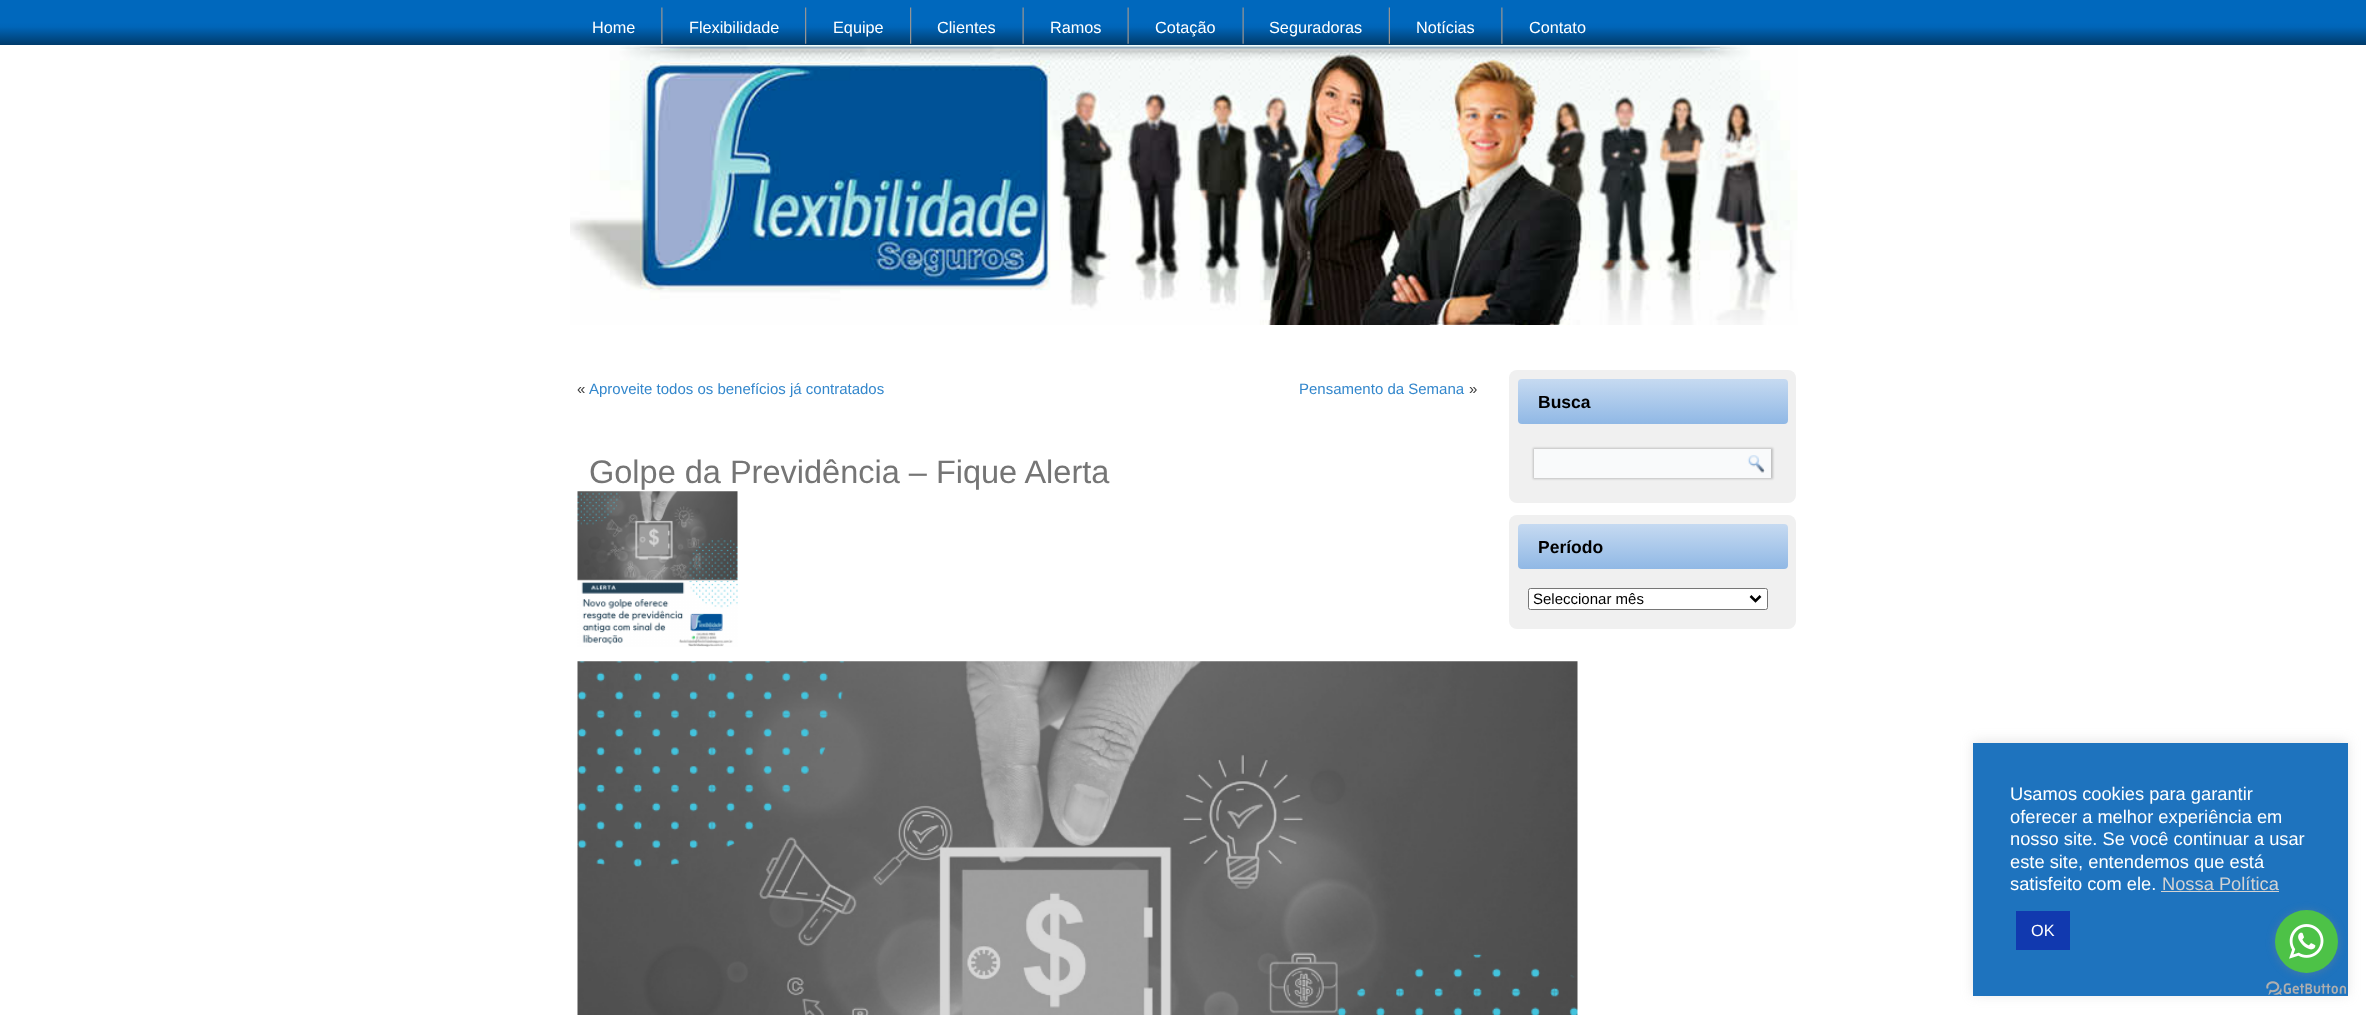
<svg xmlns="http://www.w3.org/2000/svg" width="2366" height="1015">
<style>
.a{font:16.25px Liberation Sans;fill:#fff}
.b{font:15px Liberation Sans;fill:#404040}
.c{font:15px Liberation Sans;fill:#3387cc}
.d{font:32.5px Liberation Sans;fill:#757575}
.e{font:bold 17.5px Liberation Sans;fill:#000}
.f{font:15px Liberation Sans;fill:#000}
.g{font:18.3px Liberation Sans;fill:#fff}
.h{font:18.3px Liberation Sans;fill:#d3d3d3}
</style>
<defs>
<linearGradient id="g1" gradientUnits="userSpaceOnUse" x1="1183" y1="0" x2="1183" y2="45"><stop offset="0" stop-color="#0068bd"/><stop offset="0.5" stop-color="#0068bd"/><stop offset="0.6" stop-color="#0065b8"/><stop offset="1" stop-color="#003b6b"/></linearGradient>
<linearGradient id="g2" gradientUnits="userSpaceOnUse" x1="1653" y1="379" x2="1653" y2="424"><stop offset="0" stop-color="#c6daf1"/><stop offset="1" stop-color="#90b8e5"/></linearGradient>
<linearGradient id="g3" gradientUnits="userSpaceOnUse" x1="1653" y1="524" x2="1653" y2="569"><stop offset="0" stop-color="#c6daf1"/><stop offset="1" stop-color="#90b8e5"/></linearGradient>
</defs>
<rect width="100%" height="100%" fill="#fff"/>
<path fill="url(#g1)" d="M0 0h2366v45H0z"/>
<image href="1.png" x="661" y="7" width="2" height="37"/>
<image href="2.png" x="805" y="7" width="2" height="37"/>
<image href="2.png" x="910" y="7" width="2" height="37"/>
<image href="3.png" x="1022" y="7" width="2" height="37"/>
<image href="3.png" x="1127" y="7" width="2" height="37"/>
<image href="3.png" x="1242" y="7" width="2" height="37"/>
<image href="4.png" x="1388" y="7" width="2" height="37"/>
<image href="1.png" x="1501" y="7" width="2" height="37"/>
<image href="5.png" x="570" y="45" width="1228" height="280"/>
<image href="6.png" x="577" y="491" width="161" height="156"/>
<image href="7.png" x="577" y="661" width="1001" height="354"/>
<rect fill="#f0f0f0" x="1509" y="370" width="287" height="133" rx="8"/>
<rect fill="url(#g2)" x="1518" y="379" width="270" height="45" rx="4"/>
<path fill="#00000033" filter="blur(1px)" d="M1533 448h240v31H1533z"/>
<path fill="#f9fafb" d="M1534 449h237v29H1534z"/>
<image href="8.png" x="1747" y="455" width="18" height="18"/>
<rect fill="#f0f0f0" x="1509" y="515" width="287" height="114" rx="8"/>
<rect fill="url(#g3)" x="1518" y="524" width="270" height="45" rx="4"/>
<rect fill="#fff" stroke="#767676" x="1528.5" y="588.5" width="239" height="21" rx="2"/>
<path fill="none" stroke="#000" stroke-width="2.5" d="M1750.5 596l5 5l5-5"/>
<path fill="#acabab4d" filter="blur(6px)" d="M1973 741h375v254H1973z"/>
<path fill="#1e73be" d="M1973 743h375v253H1973z"/>
<path fill="#d3d3d3" d="M2161 891h118v1H2161z"/>
<path fill="#1139af" d="M2016 911h54v39H2016z"/>
<image href="10.png" x="2266" y="981" width="80" height="14"/>
<rect fill="#88888866" filter="blur(4.5px)" x="2275" y="911" width="63" height="63" rx="31.5"/>
<circle fill="#4dc247" cx="2306.5" cy="941.5" r="31.5"/>
<image href="9.png" x="2289" y="924" width="35" height="35"/>
<text class="a" x="592" y="33">Home</text>
<text class="a" x="689" y="33">Flexibilidade</text>
<text class="a" x="833" y="33">Equipe</text>
<text class="a" x="937" y="33">Clientes</text>
<text class="a" x="1050" y="33">Ramos</text>
<text class="a" x="1155" y="33">Cotação</text>
<text class="a" x="1269" y="33">Seguradoras</text>
<text class="a" x="1416" y="33">Notícias</text>
<text class="a" x="1529" y="33">Contato</text>
<text class="b" x="577" y="394">«</text>
<text class="c" x="589" y="394">Aproveite todos os benefícios já contratados</text>
<text class="c" x="1299" y="394">Pensamento da Semana</text>
<text class="b" x="1469" y="394">»</text>
<text class="d" x="589" y="483">Golpe da Previdência – Fique Alerta</text>
<text class="e" x="1538" y="408">Busca</text>
<text class="e" x="1538" y="553">Período</text>
<text class="f" x="1533" y="604">Seleccionar mês</text>
<text class="g" x="2010" y="800">Usamos cookies para garantir</text>
<text class="g" x="2010" y="823">oferecer a melhor experiência em</text>
<text class="g" x="2010" y="845">nosso site. Se você continuar a usar</text>
<text class="g" x="2010" y="868">este site, entendemos que está</text>
<text class="g" x="2010" y="890">satisfeito com ele.</text>
<text class="h" x="2162" y="890">Nossa Política</text>
<text class="a" x="2031" y="936">OK</text>
</svg>
